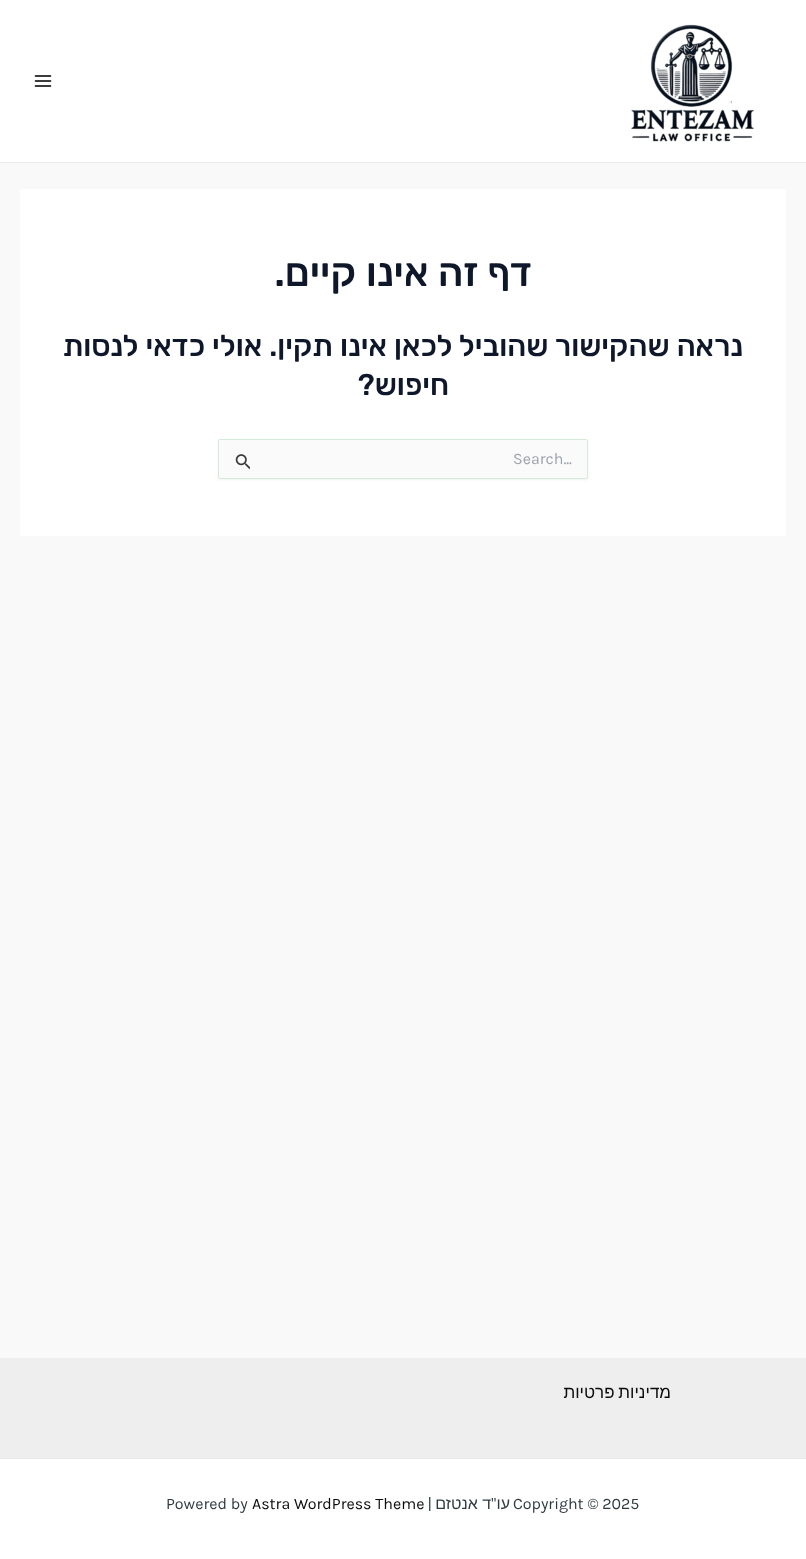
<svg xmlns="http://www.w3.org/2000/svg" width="806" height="1559">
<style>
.a{font:500 40px Rubik;direction:rtl;fill:#0f172a}
.b{font:500 30px Rubik;direction:rtl;fill:#0f172a}
.c{font:16px Karla;fill:#9ca3af}
.d{font:17px Liberation Sans;direction:rtl;fill:#0d0b0b}
.e{font:16px Karla;fill:#2f3b40}
.f{font:16px Liberation Sans;direction:rtl;fill:#2f3b40}
.g{font:16px Karla;direction:rtl;fill:#2f3b40}
.h{font:16px Karla;fill:#0d0b0b}
</style>
<rect width="100%" height="100%" fill="#f9f9f9"/>
<path fill="#fff" d="M0 0h806v162H0z"/>
<path fill="#eaeaea" d="M0 162h806v1H0z"/>
<image href="1.png" x="631" y="24" width="123" height="118"/>
<image href="2.png" x="34" y="75" width="18" height="12"/>
<path fill="#fff" d="M20 189h766v347H20z"/>
<rect fill="#0000000d" filter="blur(1px)" x="218" y="440" width="370" height="40" rx="2"/>
<rect fill="#fafafa" stroke="#d5ead8" x="218.5" y="439.5" width="369" height="39" rx="1.5"/>
<image href="3.png" x="235" y="454" width="15" height="15"/>
<path fill="#eee" d="M0 1358h806v100H0z"/>
<path fill="#fff" d="M0 1459h806v100H0z"/>
<path fill="#eaeaea" d="M0 1458h806v1H0z"/>
<text class="a" x="532" y="286" word-spacing="0.5">דף זה אינו קיים.</text>
<text class="b" x="743" y="356" word-spacing="0.25">נראה שהקישור שהוביל לכאן אינו תקין. אולי כדאי לנסות</text>
<text class="b" x="449" y="395">חיפוש?</text>
<text class="c" x="513" y="464">Search...</text>
<text class="d" x="671" y="1398" word-spacing="-1">מדיניות פרטיות</text>
<text class="e" x="513" y="1509">Copyright © 2025</text>
<text class="f" x="510" y="1509">עו</text>
<text class="g" x="496" y="1509">"</text>
<text class="f" x="491" y="1509">ד אנטזם</text>
<text class="g" x="432" y="1509">|</text>
<text class="h" x="252" y="1509">Astra WordPress Theme</text>
<text class="e" x="166" y="1509">Powered by</text>
</svg>
